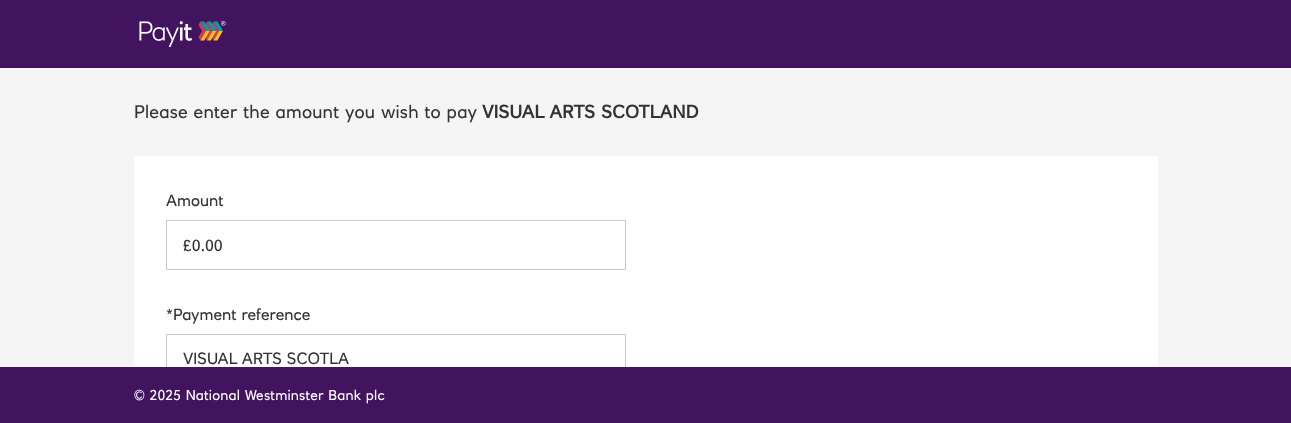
<svg xmlns="http://www.w3.org/2000/svg" width="1291" height="423">
<style>
.a{font:18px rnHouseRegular;letter-spacing:0.2px;fill:#333}
.b{font:bold 18px rnHouseRegular;letter-spacing:0.2px;fill:#333}
.c{font:16px rnHouseRegular;fill:#333}
.d{font:14px rnHouseRegular;letter-spacing:0.2px;fill:#fff}
</style>
<rect width="100%" height="100%" fill="#f5f5f5"/>
<path fill="#42145f" d="M0 0h1291v68H0z"/>
<image href="1.png" x="139" y="21" width="87" height="26"/>
<path fill="#fff" d="M134 156h1024v211H134z"/>
<path fill="none" stroke="#c9c6c6" d="M166.5 220.5h459v49H166.5z"/>
<path fill="none" stroke="#c9c6c6" d="M166.5 334.5h459v47H166.5z"/>
<path fill="#42145f" d="M0 367h1291v56H0z"/>
<text class="a" x="134" y="118">Please enter the amount you wish to pay</text>
<text class="b" x="482" y="118">VISUAL ARTS SCOTLAND</text>
<text class="c" x="166" y="206">Amount</text>
<text class="c" x="183" y="251">£0.00</text>
<text class="c" x="166" y="320">*Payment reference</text>
<text class="c" x="183" y="364">VISUAL ARTS SCOTLA</text>
<text class="d" x="134" y="400">© 2025 National Westminster Bank plc</text>
</svg>
